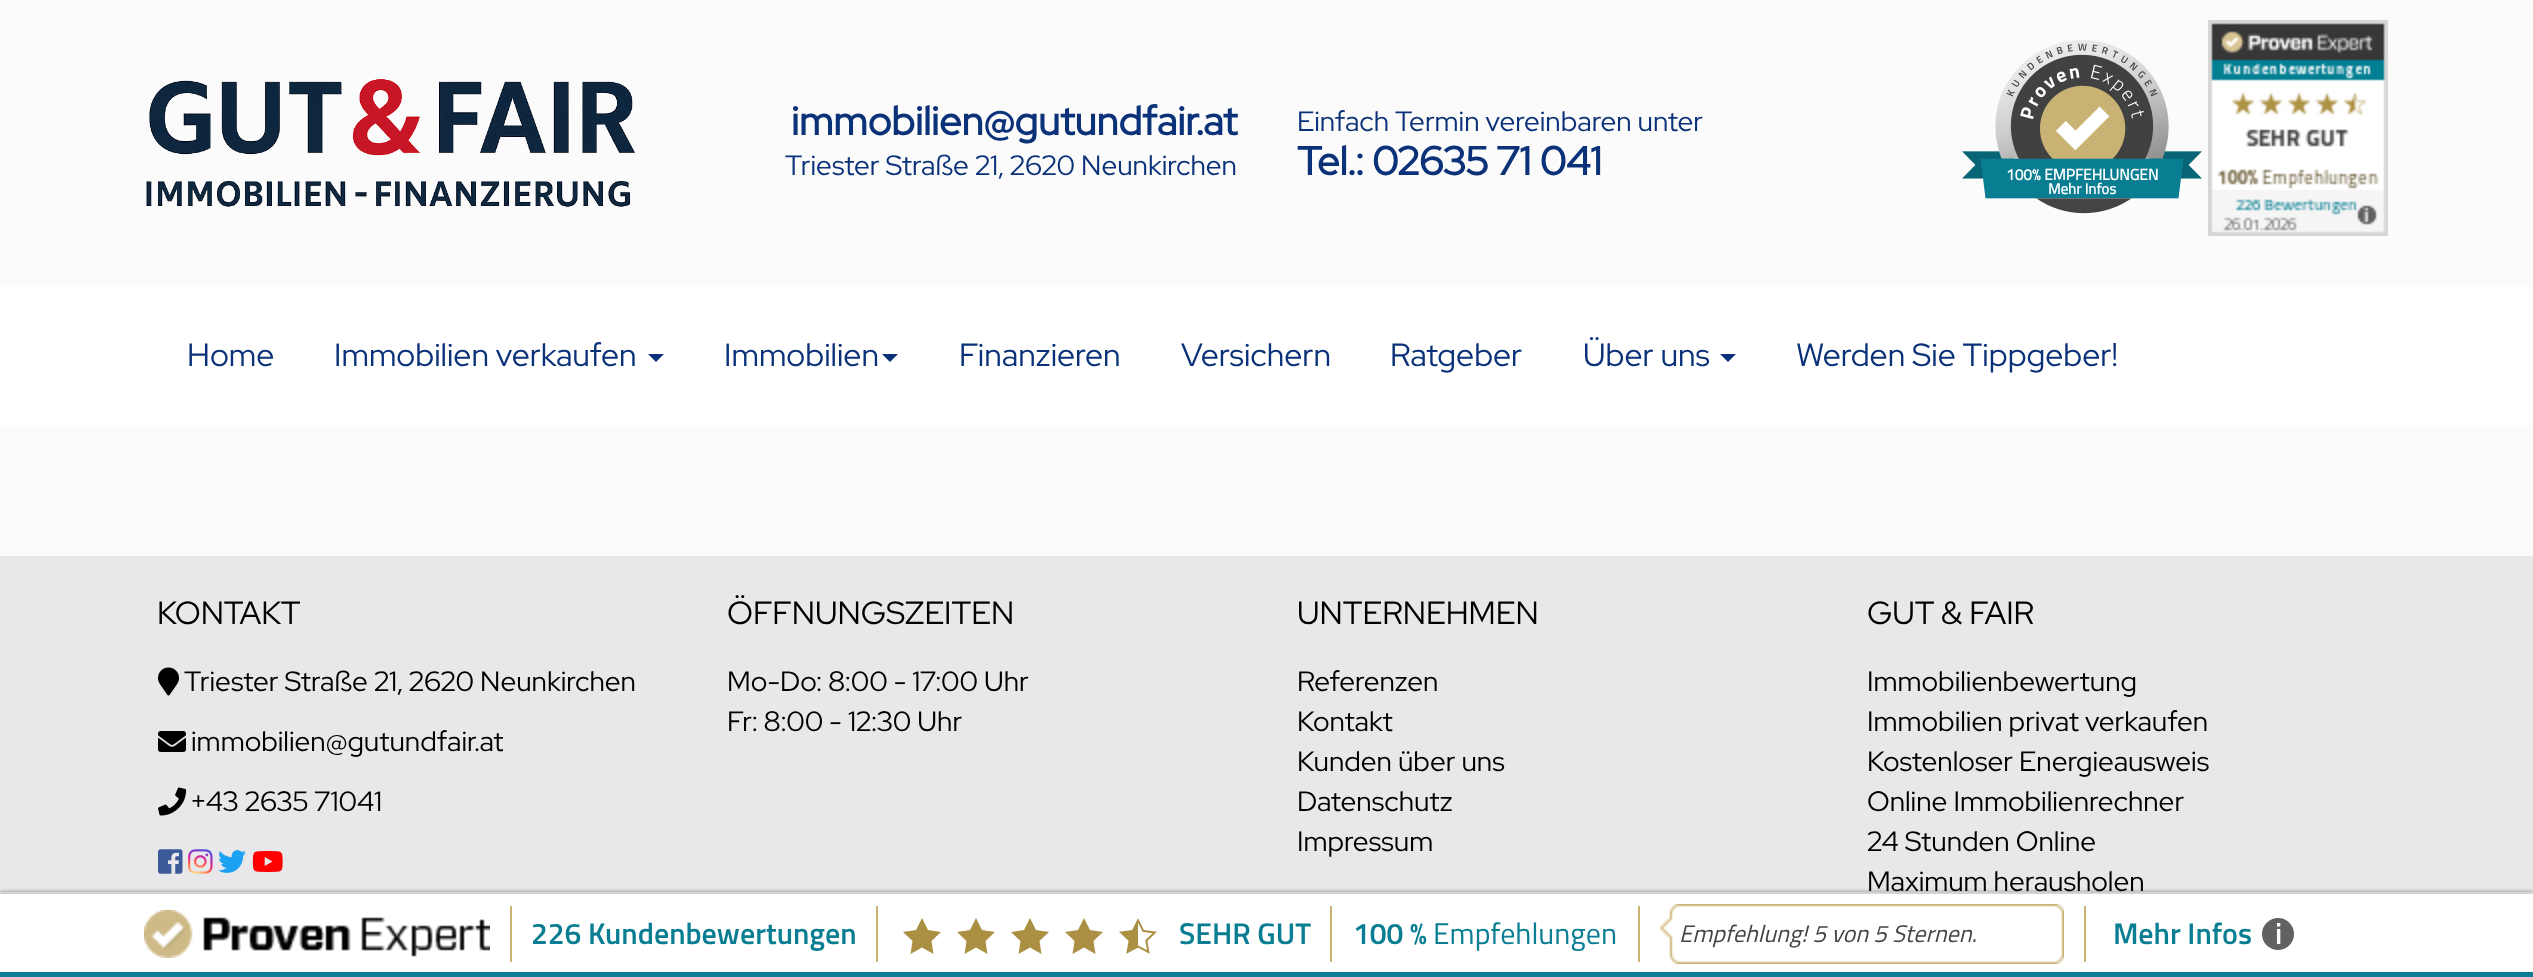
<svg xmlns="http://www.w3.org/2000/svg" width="2533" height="977">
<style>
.a{font:bold 40px Red Hat Display;fill:#0b3279}
.b{font:28px Red Hat Display;fill:#0b3279}
.c{font:bold 15.5px Titillium Web;fill:#fff}
.d{font:bold 15px Titillium Web;fill:#fff}
.e{font:32px Red Hat Display;fill:#0b3279}
.f{font:32px Red Hat Display;fill:#000}
.g{font:28px Red Hat Display;fill:#000}
.h{font:600 30px Titillium Web;fill:#097e92}
.i{font:30px Titillium Web;fill:#097e92}
.j{font:italic 24px Titillium Web;fill:#444}
.k{font:600 30px Titillium Web;fill:#fff}
</style>
<rect width="100%" height="100%" fill="#fbfbfb"/>
<path fill="#fff" d="M0 286h2533v140H0z"/>
<image href="1.png" x="146" y="79" width="490" height="128"/>
<image href="2.png" x="1962" y="40" width="240" height="174"/>
<image href="3.png" x="2208" y="20" width="180" height="216"/>
<path fill="#0b3279" d="M648 354h16l-8 8z"/>
<path fill="#0b3279" d="M882 354h16l-8 8z"/>
<path fill="#0b3279" d="M1720 354h16l-8 8z"/>
<path fill="#e8e8ea" d="M0 556h2533v336H0z"/>
<image href="4.png" x="158" y="667" width="21" height="29"/>
<image href="5.png" x="158" y="731" width="28" height="21"/>
<image href="6.png" x="158" y="787" width="29" height="29"/>
<image href="7.png" x="158" y="849" width="25" height="25"/>
<image href="8.png" x="188" y="849" width="25" height="25"/>
<image href="9.png" x="218" y="850" width="28" height="23"/>
<image href="10.png" x="252" y="851" width="31" height="21"/>
<path fill="#888" filter="blur(2px)" d="M0 892h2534v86H0z"/>
<path fill="#fff" d="M0 894h2533v78H0z"/>
<path fill="#d3d3d3" d="M0 892h2533v2H0z"/>
<image href="11.png" x="144" y="910" width="346" height="48"/>
<path fill="#c8b274" d="M510 906h2v56H510z"/>
<path fill="#c8b274" d="M876 906h2v56H876z"/>
<path fill="#ab9044" d="M922 918l6 12l13 2l-9.5 9l2 13l-11.5-6.5l-11.5 6.5l2-13l-9.5-9l13-2z"/>
<path fill="#ab9044" d="M976 918l6 12l13 2l-9.5 9l2 13l-11.5-6.5l-11.5 6.5l2-13l-9.5-9l13-2z"/>
<path fill="#ab9044" d="M1030 918l6 12l13 2l-9.5 9l2 13l-11.5-6.5l-11.5 6.5l2-13l-9.5-9l13-2z"/>
<path fill="#ab9044" d="M1084 918l6 12l13 2l-9.5 9l2 13l-11.5-6.5l-11.5 6.5l2-13l-9.5-9l13-2z"/>
<image href="12.png" x="1119" y="918" width="38" height="36"/>
<path fill="#c8b274" d="M1330 906h2v56H1330z"/>
<path fill="#c8b274" d="M1638 906h2v56H1638z"/>
<image href="13.png" x="1660" y="904" width="404" height="60"/>
<path fill="#c8b274" d="M2084 906h2v56H2084z"/>
<circle fill="#616161" cx="2278" cy="934" r="16"/>
<path fill="#097e92" d="M0 972h2533v5H0z"/>
<text class="a" x="791" y="135">immobilien@gutundfair.at</text>
<text class="b" x="785" y="175">Triester Straße 21, 2620 Neunkirchen</text>
<text class="b" x="1297" y="131">Einfach Termin vereinbaren unter</text>
<text class="a" x="1297" y="175">Tel.: 02635 71 041</text>
<text class="c" x="2006" y="180">100% EMPFEHLUNGEN</text>
<text class="d" x="2048" y="194">Mehr Infos</text>
<text class="e" x="187" y="366">Home</text>
<text class="e" x="334" y="366">Immobilien verkaufen</text>
<text class="e" x="724" y="366">Immobilien</text>
<text class="e" x="959" y="366">Finanzieren</text>
<text class="e" x="1181" y="366">Versichern</text>
<text class="e" x="1390" y="366">Ratgeber</text>
<text class="e" x="1583" y="366">Über uns</text>
<text class="e" x="1796" y="366">Werden Sie Tippgeber!</text>
<text class="f" x="157" y="624">KONTAKT</text>
<text class="g" x="184" y="691">Triester Straße 21, 2620 Neunkirchen</text>
<text class="g" x="191" y="751">immobilien@gutundfair.at</text>
<text class="g" x="191" y="811">+43 2635 71041</text>
<text class="f" x="727" y="624">ÖFFNUNGSZEITEN</text>
<text class="g" x="727" y="691">Mo-Do: 8:00 - 17:00 Uhr</text>
<text class="g" x="727" y="731">Fr: 8:00 - 12:30 Uhr</text>
<text class="f" x="1297" y="624">UNTERNEHMEN</text>
<text class="g" x="1297" y="691">Referenzen</text>
<text class="g" x="1297" y="731">Kontakt</text>
<text class="g" x="1297" y="771">Kunden über uns</text>
<text class="g" x="1297" y="811">Datenschutz</text>
<text class="g" x="1297" y="851">Impressum</text>
<text class="f" x="1867" y="624">GUT &amp; FAIR</text>
<text class="g" x="1867" y="691">Immobilienbewertung</text>
<text class="g" x="1867" y="731">Immobilien privat verkaufen</text>
<text class="g" x="1867" y="771">Kostenloser Energieausweis</text>
<text class="g" x="1867" y="811">Online Immobilienrechner</text>
<text class="g" x="1867" y="851">24 Stunden Online</text>
<text class="g" x="1867" y="891">Maximum herausholen</text>
<text class="h" x="531" y="944">226 Kundenbewertungen</text>
<text class="h" x="1179" y="944">SEHR GUT</text>
<text class="h" x="1353" y="944">100 %</text>
<text class="i" x="1433" y="944">Empfehlungen</text>
<text class="j" x="1679" y="942">Empfehlung! 5 von 5 Sternen.</text>
<text class="h" x="2113" y="944">Mehr Infos</text>
<text class="k" x="2275" y="944">i</text>
</svg>
